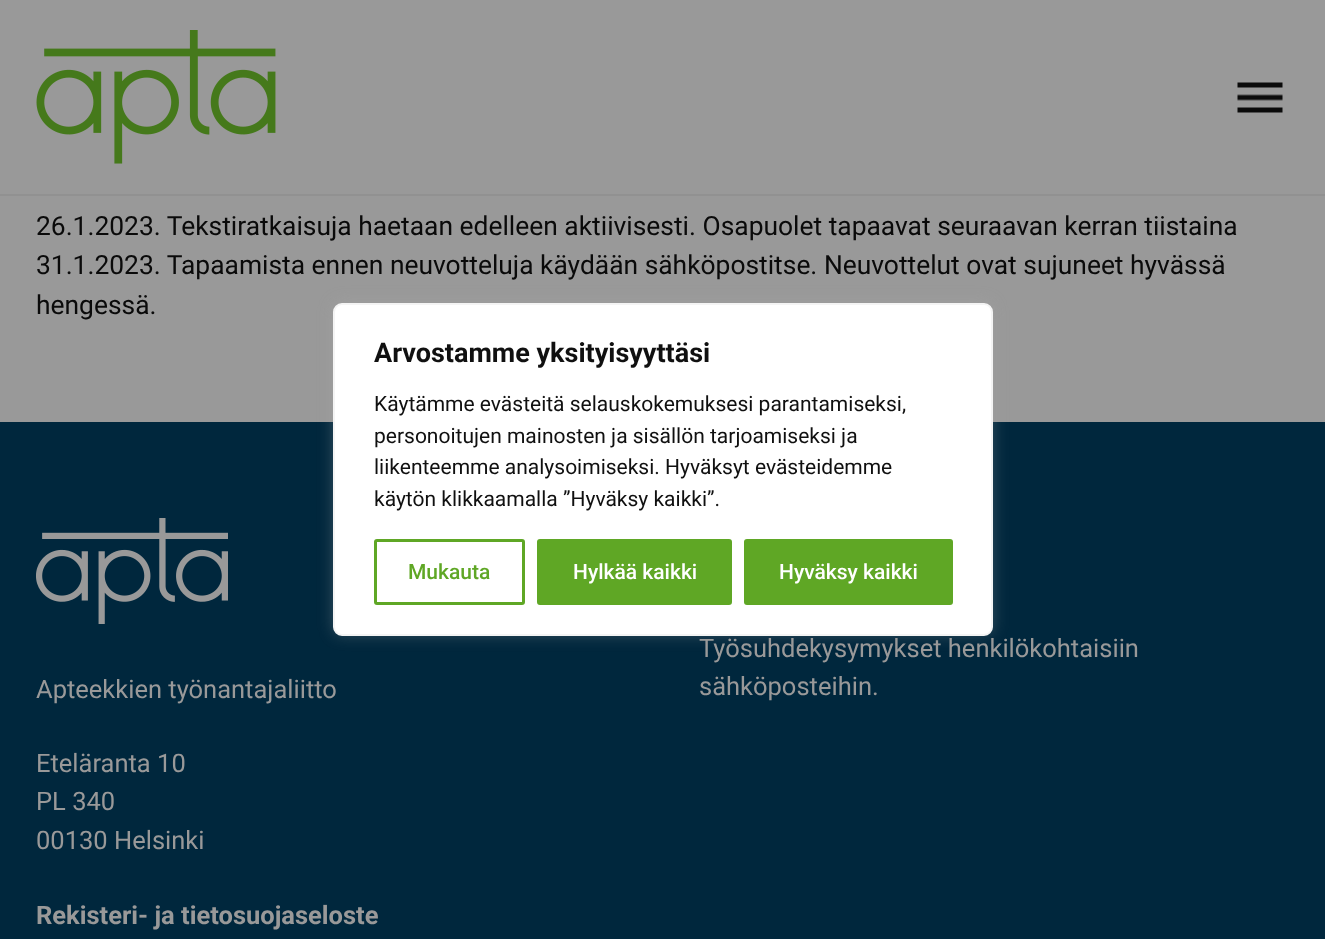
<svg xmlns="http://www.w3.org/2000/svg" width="1325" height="939">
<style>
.a{font:26.4px Roboto;fill:#0a0a0a}
.b{font:25.5px Roboto;fill:#999}
.c{font:bold 25.5px Roboto;fill:#999}
.d{font:bold 27px Roboto;fill:#101010}
.e{font:21px Roboto;fill:#101010}
.f{font:500 21px Roboto;fill:#5fa725}
.g{font:500 21px Roboto;fill:#fff}
</style>
<rect width="100%" height="100%" fill="#999"/>
<path fill="#919191" d="M0 194h1325v2H0z"/>
<image href="1.png" x="36" y="30" width="240" height="134"/>
<image href="2.png" x="1237" y="82" width="46" height="31"/>
<path fill="#00273d" d="M0 422h1325v517H0z"/>
<image href="3.png" x="36" y="518" width="192" height="106"/>
<rect fill="#acabab4d" filter="blur(7.5px)" x="333" y="302" width="660" height="333" rx="9"/>
<rect fill="#fff" stroke="#f4f4f4" stroke-width="2" x="334" y="304" width="658" height="331" rx="8"/>
<rect fill="none" stroke="#5fa725" stroke-width="3" x="375.5" y="540.5" width="148" height="63" rx="1.5"/>
<rect fill="#5fa725" stroke="#5fa725" stroke-width="3" x="538.5" y="540.5" width="192" height="63" rx="1.5"/>
<rect fill="#5fa725" stroke="#5fa725" stroke-width="3" x="745.5" y="540.5" width="206" height="63" rx="1.5"/>
<text class="a" x="36" y="235">26.1.2023. Tekstiratkaisuja haetaan edelleen aktiivisesti. Osapuolet tapaavat seuraavan kerran tiistaina</text>
<text class="a" x="36" y="274">31.1.2023. Tapaamista ennen neuvotteluja käydään sähköpostitse. Neuvottelut ovat sujuneet hyvässä</text>
<text class="a" x="36" y="314">hengessä.</text>
<text class="b" x="699" y="657">Työsuhdekysymykset henkilökohtaisiin</text>
<text class="b" x="699" y="695">sähköposteihin.</text>
<text class="b" x="36" y="698">Apteekkien työnantajaliitto</text>
<text class="b" x="36" y="772">Eteläranta 10</text>
<text class="b" x="36" y="810">PL 340</text>
<text class="b" x="36" y="849">00130 Helsinki</text>
<text class="c" x="36" y="924">Rekisteri- ja tietosuojaseloste</text>
<text class="d" x="374" y="362">Arvostamme yksityisyyttäsi</text>
<text class="e" x="374" y="411">Käytämme evästeitä selauskokemuksesi parantamiseksi,</text>
<text class="e" x="374" y="443">personoitujen mainosten ja sisällön tarjoamiseksi ja</text>
<text class="e" x="374" y="474">liikenteemme analysoimiseksi. Hyväksyt evästeidemme</text>
<text class="e" x="374" y="506">käytön klikkaamalla ”Hyväksy kaikki”.</text>
<text class="f" x="408" y="579">Mukauta</text>
<text class="g" x="573" y="579">Hylkää kaikki</text>
<text class="g" x="779" y="579">Hyväksy kaikki</text>
</svg>
